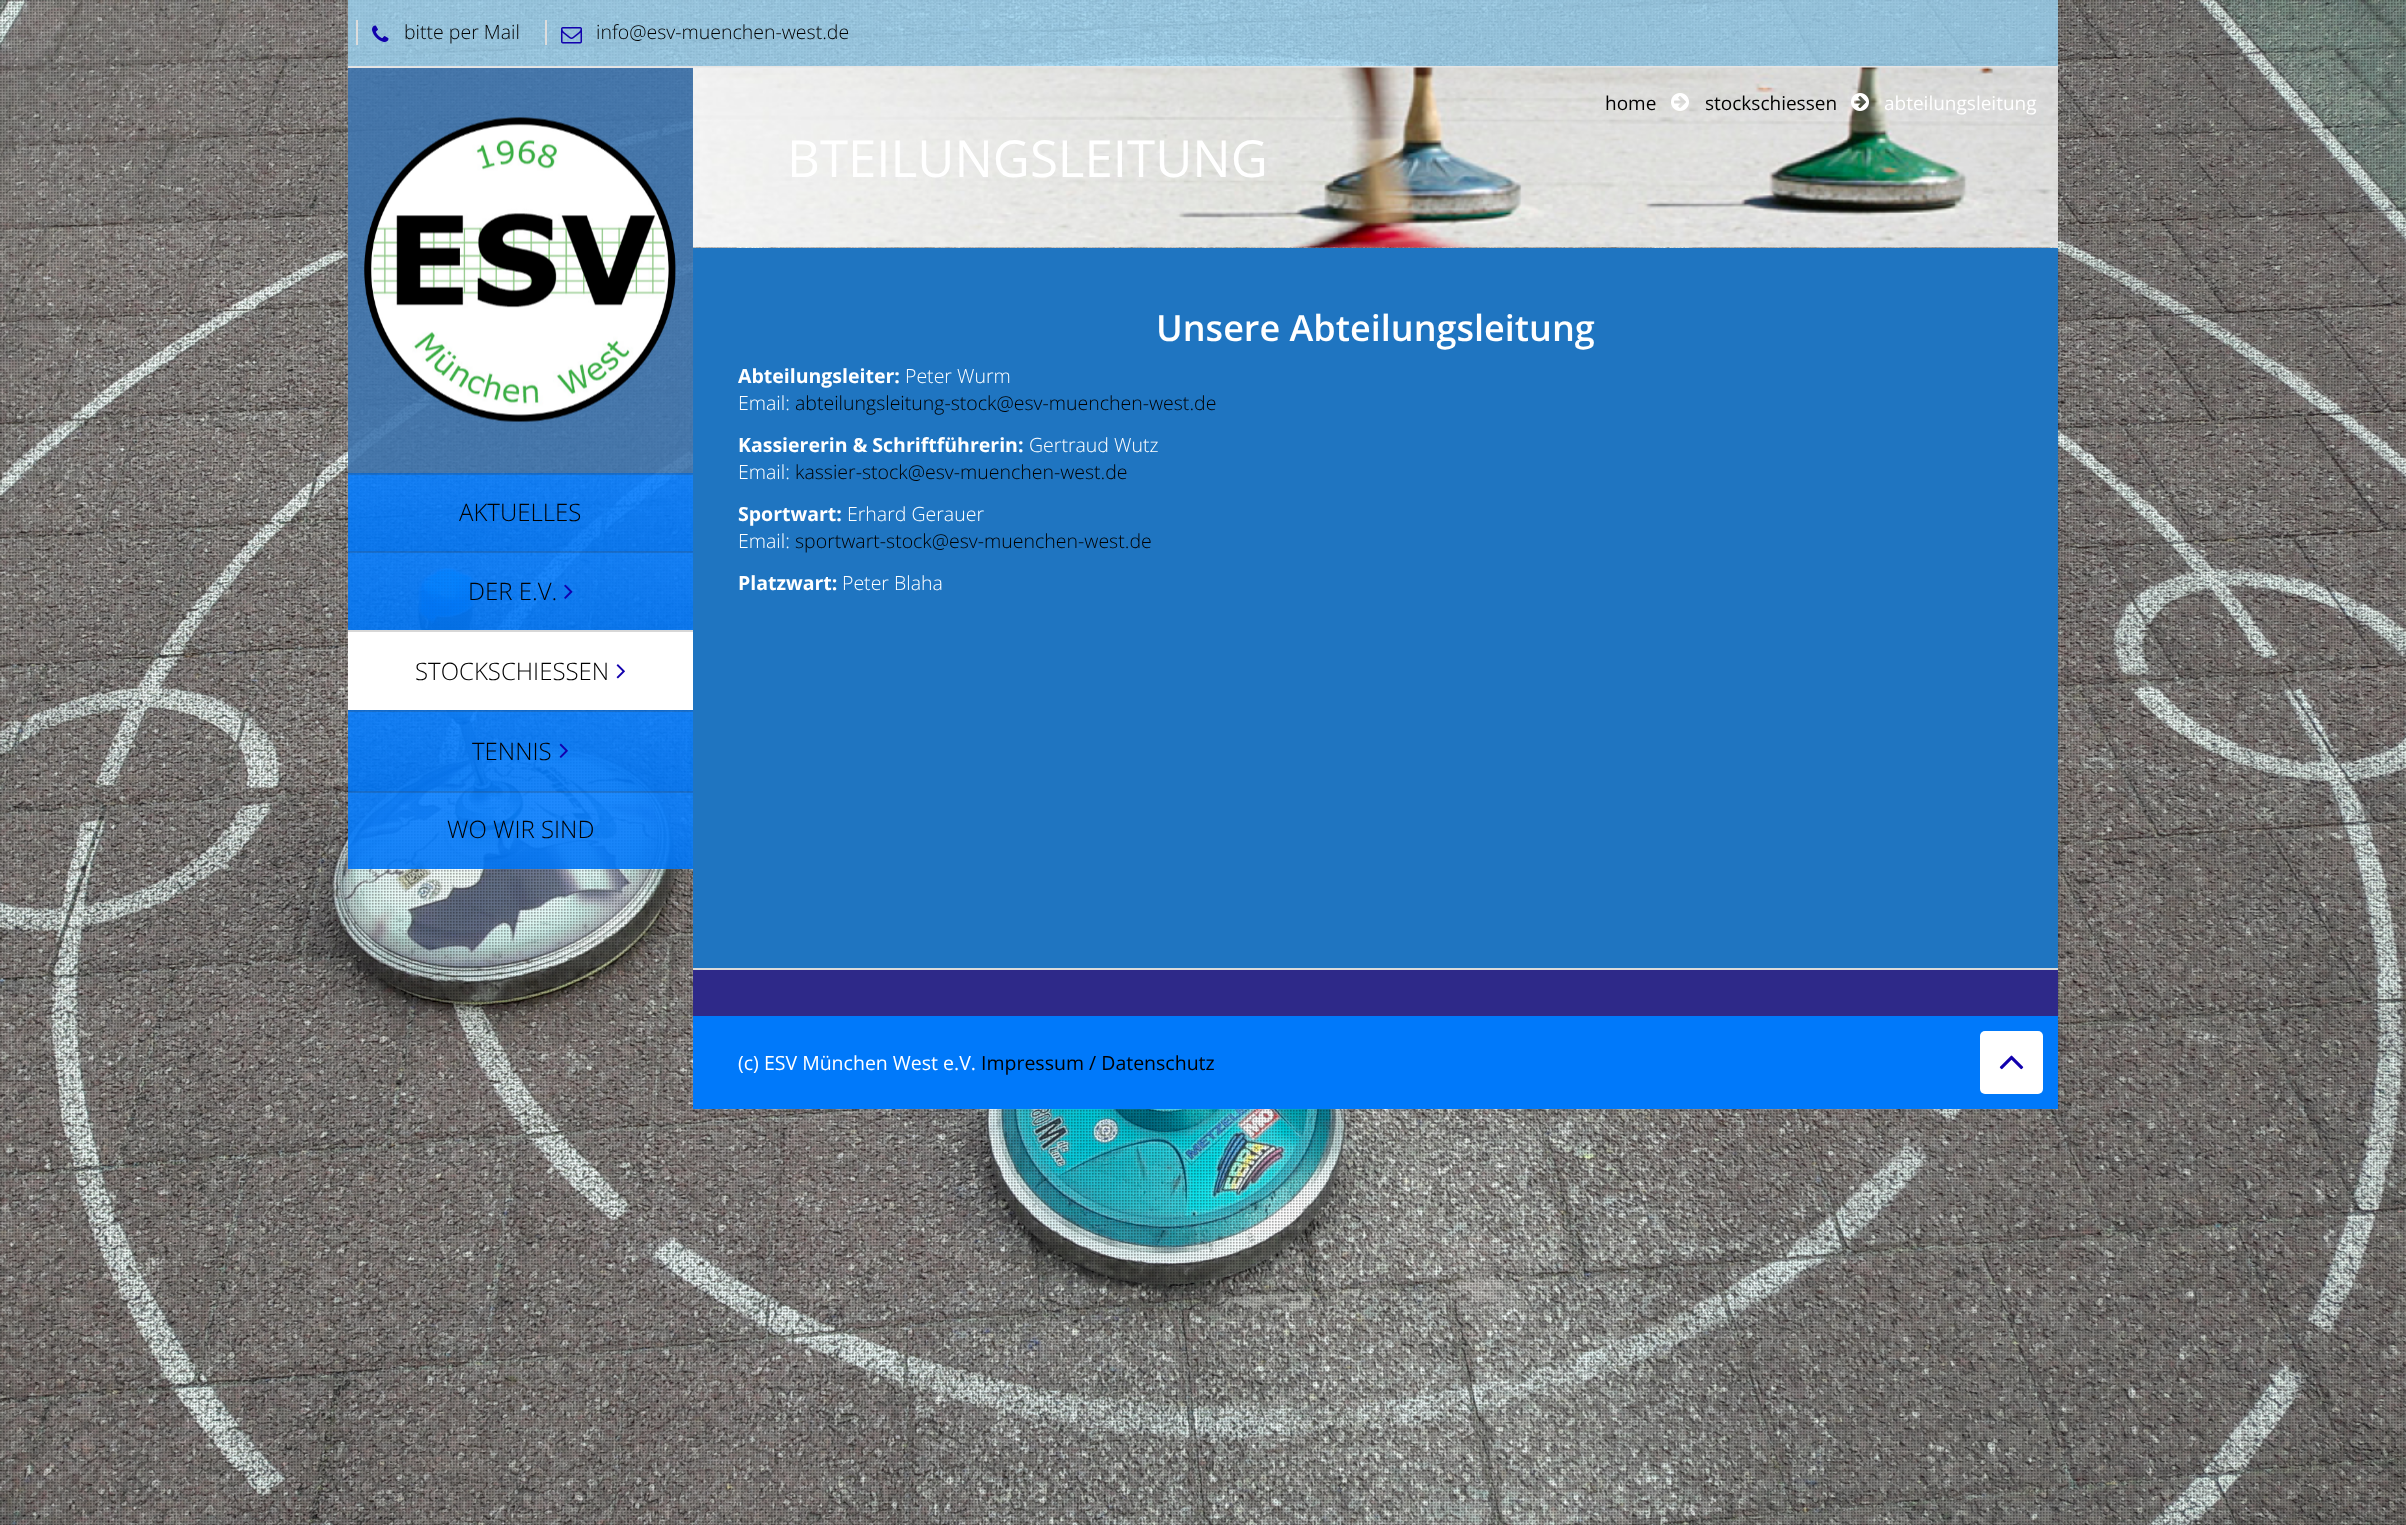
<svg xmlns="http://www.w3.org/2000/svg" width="2406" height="1525">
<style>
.a{font:300 19.5px Open Sans;fill:#000}
.b{font:300 24px Open Sans;fill:#000}
.c{font:19px Open Sans;fill:#000}
.d{font:19px Open Sans;fill:#fff}
.e{font:51px Open Sans;fill:#fff}
.f{font:600 36px Open Sans;fill:#fff}
.g{font:bold 19.5px Open Sans;fill:#fff}
.h{font:300 19.5px Open Sans;fill:#fff}
.i{font:19.5px Open Sans;fill:#fff}
.j{font:19.5px Open Sans;fill:#000}
</style>
<defs>
<linearGradient id="g1" gradientUnits="userSpaceOnUse" x1="521" y1="474" x2="521" y2="398"><stop offset="0" stop-color="#000" stop-opacity="0.03"/><stop offset="1" stop-color="#fff" stop-opacity="0.03"/></linearGradient>
<linearGradient id="g2" gradientUnits="userSpaceOnUse" x1="521" y1="551" x2="521" y2="474"><stop offset="0" stop-color="#000" stop-opacity="0.03"/><stop offset="1" stop-color="#fff" stop-opacity="0.03"/></linearGradient>
<linearGradient id="g3" gradientUnits="userSpaceOnUse" x1="521" y1="552" x2="521" y2="474"><stop offset="0" stop-color="#000" stop-opacity="0.03"/><stop offset="1" stop-color="#fff" stop-opacity="0.03"/></linearGradient>
<linearGradient id="g4" gradientUnits="userSpaceOnUse" x1="521" y1="630" x2="521" y2="552"><stop offset="0" stop-color="#000" stop-opacity="0.03"/><stop offset="1" stop-color="#fff" stop-opacity="0.03"/></linearGradient>
<linearGradient id="g5" gradientUnits="userSpaceOnUse" x1="521" y1="711" x2="521" y2="632"><stop offset="0" stop-color="#000" stop-opacity="0.03"/><stop offset="1" stop-color="#fff" stop-opacity="0.03"/></linearGradient>
<linearGradient id="g6" gradientUnits="userSpaceOnUse" x1="521" y1="791" x2="521" y2="711"><stop offset="0" stop-color="#000" stop-opacity="0.03"/><stop offset="1" stop-color="#fff" stop-opacity="0.03"/></linearGradient>
<linearGradient id="g7" gradientUnits="userSpaceOnUse" x1="521" y1="792" x2="521" y2="716"><stop offset="0" stop-color="#000" stop-opacity="0.03"/><stop offset="1" stop-color="#fff" stop-opacity="0.03"/></linearGradient>
<linearGradient id="g8" gradientUnits="userSpaceOnUse" x1="521" y1="869" x2="521" y2="792"><stop offset="0" stop-color="#000" stop-opacity="0.03"/><stop offset="1" stop-color="#fff" stop-opacity="0.03"/></linearGradient>
</defs>
<rect width="100%" height="100%" fill="#fff"/>
<image href="1.png" x="0" y="0" width="2406" height="1525"/>
<image href="2.png" x="0" y="0" width="2406" height="1525"/>
<path fill="#9cd4f4cc" d="M348 0h1710v66H348z"/>
<path fill="#e4e4e4" d="M348 66h1710v2H348z"/>
<path fill="#ddd" d="M356 20h2v25H356z"/>
<image href="3.png" x="372" y="25" width="17" height="17"/>
<path fill="#ddd" d="M545 20h2v25H545z"/>
<image href="4.png" x="561" y="27" width="21" height="17"/>
<path fill="#3f75afe6" d="M348 68h345v405H348z"/>
<image href="5.png" x="364" y="117" width="312" height="305"/>
<path fill="#007affe6" d="M348 473h345v78H348z"/>
<path fill="url(#g1)" d="M348 473h345v1H348z"/>
<path fill="url(#g2)" d="M348 474h345v77H348z"/>
<path fill="#38383833" d="M348 473h345v2H348z"/>
<path fill="#007affe6" d="M348 551h345v79H348z"/>
<path fill="url(#g3)" d="M348 551h345v1H348z"/>
<path fill="url(#g4)" d="M348 552h345v78H348z"/>
<path fill="#38383833" d="M348 551h345v2H348z"/>
<image href="6.png" x="564" y="584" width="9" height="15"/>
<path fill="#fff" d="M348 632h345v78H348z"/>
<path fill="#d7d7d7" d="M348 630h345v2H348z"/>
<image href="7.png" x="616" y="664" width="9" height="15"/>
<path fill="#007affe6" d="M348 710h345v81H348z"/>
<path fill="url(#g5)" d="M348 710h345v1H348z"/>
<path fill="url(#g6)" d="M348 711h345v80H348z"/>
<path fill="#38383833" d="M348 710h345v2H348z"/>
<image href="8.png" x="559" y="743" width="9" height="15"/>
<path fill="#007affe6" d="M348 791h345v78H348z"/>
<path fill="url(#g7)" d="M348 791h345v1H348z"/>
<path fill="url(#g8)" d="M348 792h345v77H348z"/>
<path fill="#38383833" d="M348 791h345v2H348z"/>
<image href="9.png" x="693" y="67" width="1365" height="181"/>
<image href="10.png" x="1671" y="93" width="18" height="18"/>
<image href="11.png" x="1851" y="93" width="18" height="18"/>
<path fill="#1f75c1" d="M693 248h1365v720H693z"/>
<path fill="#2e2989" d="M693 970h1365v46H693z"/>
<path fill="#dbdbdb" d="M693 968h1365v2H693z"/>
<path fill="#0079fa" d="M693 1016h1365v93H693z"/>
<rect fill="#fff" x="1980" y="1031" width="63" height="63" rx="5"/>
<image href="12.png" x="1999" y="1055" width="25" height="15"/>
<text class="a" x="404" y="39">bitte per Mail</text>
<text class="a" x="596" y="39">info@esv-muenchen-west.de</text>
<text class="b" x="459" y="521">AKTUELLES</text>
<text class="b" x="468" y="600">DER E.V.</text>
<text class="b" x="415" y="680">STOCKSCHIESSEN</text>
<text class="b" x="472" y="760">TENNIS</text>
<text class="b" x="447" y="838">WO WIR SIND</text>
<text class="c" x="1605" y="110">home</text>
<text class="c" x="1705" y="110">stockschiessen</text>
<text class="d" x="1884" y="110">abteilungsleitung</text>
<text class="e" x="787" y="177">BTEILUNGSLEITUNG</text>
<text class="f" x="1156" y="341">Unsere Abteilungsleitung</text>
<text class="g" x="738" y="383">Abteilungsleiter:</text>
<text class="h" x="905" y="383">Peter Wurm</text>
<text class="h" x="738" y="410">Email:</text>
<text class="a" x="795" y="410">abteilungsleitung-stock@esv-muenchen-west.de</text>
<text class="g" x="738" y="452">Kassiererin &amp; Schriftführerin:</text>
<text class="h" x="1029" y="452">Gertraud Wutz</text>
<text class="h" x="738" y="479">Email:</text>
<text class="a" x="795" y="479">kassier-stock@esv-muenchen-west.de</text>
<text class="g" x="738" y="521">Sportwart:</text>
<text class="h" x="847" y="521">Erhard Gerauer</text>
<text class="h" x="738" y="548">Email:</text>
<text class="a" x="795" y="548">sportwart-stock@esv-muenchen-west.de</text>
<text class="g" x="738" y="590">Platzwart:</text>
<text class="h" x="842" y="590">Peter Blaha</text>
<text class="i" x="738" y="1070">(c) ESV München West e.V.</text>
<text class="j" x="981" y="1070">Impressum / Datenschutz</text>
</svg>
